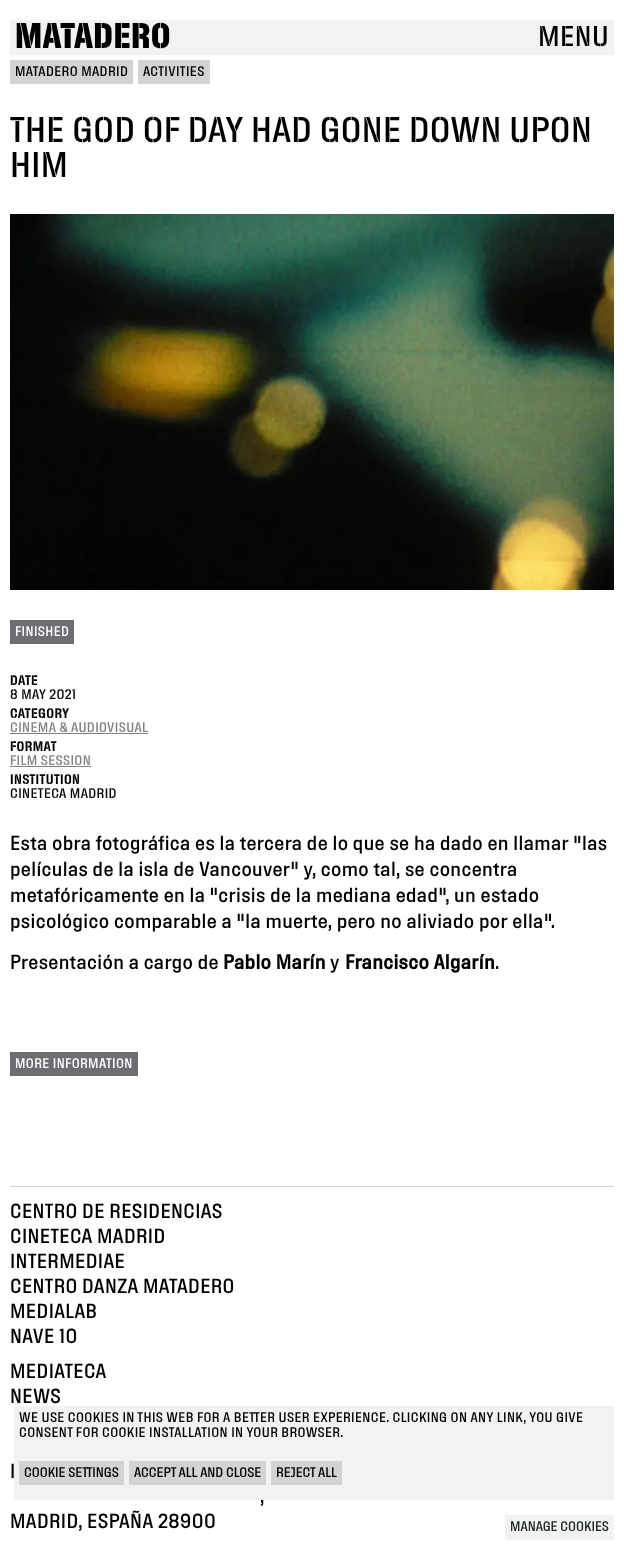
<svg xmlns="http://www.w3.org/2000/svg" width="624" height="1560">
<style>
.a{font:bold 35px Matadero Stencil;letter-spacing:0.4px;fill:#000}
.b{font:500 28px Matadero Stencil;letter-spacing:0.4px;fill:#000}
.c{font:500 13.5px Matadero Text;letter-spacing:0.4px;fill:#000}
.d{font:500 35px Matadero Stencil;letter-spacing:0.4px;fill:#000}
.e{font:500 13.5px Matadero Text;letter-spacing:0.4px;fill:#fff}
.f{font:600 13.5px Matadero Stencil;letter-spacing:0.4px;fill:#000}
.g{font:500 13.5px Matadero Stencil;letter-spacing:0.4px;fill:#000}
.h{font:500 13.5px Matadero Stencil;letter-spacing:0.4px;fill:#808080}
.i{font:500 20px Matadero Text;letter-spacing:0.4px;fill:#000}
.j{font:bold 20px Matadero Text;letter-spacing:0.4px;fill:#000}
.k{font:500 13.5px Matadero Text;fill:#000}
.l{font:500 13.5px Matadero Text;fill:#212529}
</style>
<rect width="100%" height="100%" fill="#fff"/>
<path fill="#f1f2f2" d="M10 20h604v35H10z"/>
<path fill="#d1d3d4" d="M10 60h123v24H10z"/>
<path fill="#d1d3d4" d="M138 60h72v24H138z"/>
<image href="1.png" x="10" y="214" width="604" height="376"/>
<path fill="#6d6e71" d="M10 620h64v24H10z"/>
<path fill="#808080" d="M10 733h138v1H10z"/>
<path fill="#808080" d="M10 766h81v1H10z"/>
<path fill="#6d6e71" d="M10 1052h128v24H10z"/>
<path fill="#d1d3d4" d="M10 1186h604v1H10z"/>
<path fill="#f1f2f2" d="M14 1406h600v94H14z"/>
<path fill="#d1d3d4" d="M19 1461h105v24H19z"/>
<path fill="#d1d3d4" d="M129 1461h137v24H129z"/>
<path fill="#d1d3d4" d="M271 1461h71v24H271z"/>
<path fill="#f1f2f2" d="M505 1515h109v25H505z"/>
<text class="a" x="15" y="48">MATADERO</text>
<text class="b" x="538" y="46">MENU</text>
<text class="c" x="15" y="76">MATADERO MADRID</text>
<text class="c" x="143" y="76">ACTIVITIES</text>
<text class="d" x="10" y="142">THE GOD OF DAY HAD GONE DOWN UPON</text>
<text class="d" x="10" y="177">HIM</text>
<text class="e" x="15" y="636">FINISHED</text>
<text class="f" x="10" y="685">DATE</text>
<text class="g" x="10" y="699">8 MAY 2021</text>
<text class="f" x="10" y="718">CATEGORY</text>
<text class="h" x="10" y="732">CINEMA &amp; AUDIOVISUAL</text>
<text class="f" x="10" y="751">FORMAT</text>
<text class="h" x="10" y="765">FILM SESSION</text>
<text class="f" x="10" y="784">INSTITUTION</text>
<text class="g" x="10" y="798">CINETECA MADRID</text>
<text class="i" x="10" y="850">Esta obra fotográfica es la tercera de lo que se ha dado en llamar "las</text>
<text class="i" x="10" y="876">películas de la isla de Vancouver" y, como tal, se concentra</text>
<text class="i" x="10" y="902">metafóricamente en la "crisis de la mediana edad", un estado</text>
<text class="i" x="10" y="928">psicológico comparable a "la muerte, pero no aliviado por ella".</text>
<text class="i" x="10" y="969">Presentación a cargo de</text>
<text class="j" x="223" y="969">Pablo Marín</text>
<text class="i" x="330" y="969">y</text>
<text class="j" x="345" y="969">Francisco Algarín</text>
<text class="i" x="495" y="969">.</text>
<text class="e" x="15" y="1068">MORE INFORMATION</text>
<text class="i" x="10" y="1218">CENTRO DE RESIDENCIAS</text>
<text class="i" x="10" y="1243">CINETECA MADRID</text>
<text class="i" x="10" y="1268">INTERMEDIAE</text>
<text class="i" x="10" y="1293">CENTRO DANZA MATADERO</text>
<text class="i" x="10" y="1318">MEDIALAB</text>
<text class="i" x="10" y="1343">NAVE 10</text>
<text class="i" x="10" y="1378">MEDIATECA</text>
<text class="i" x="10" y="1403">NEWS</text>
<text class="i" x="10" y="1478">I</text>
<text class="i" x="260" y="1503">,</text>
<text class="i" x="10" y="1528">MADRID, ESPAÑA 28900</text>
<text class="c" x="19" y="1422">WE USE COOKIES IN THIS WEB FOR A BETTER USER EXPERIENCE. CLICKING ON ANY LINK, YOU GIVE</text>
<text class="c" x="19" y="1437">CONSENT FOR COOKIE INSTALLATION IN YOUR BROWSER.</text>
<text class="k" x="24" y="1477">COOKIE SETTINGS</text>
<text class="k" x="134" y="1477">ACCEPT ALL AND CLOSE</text>
<text class="k" x="276" y="1477">REJECT ALL</text>
<text class="l" x="510" y="1531">MANAGE COOKIES</text>
</svg>
